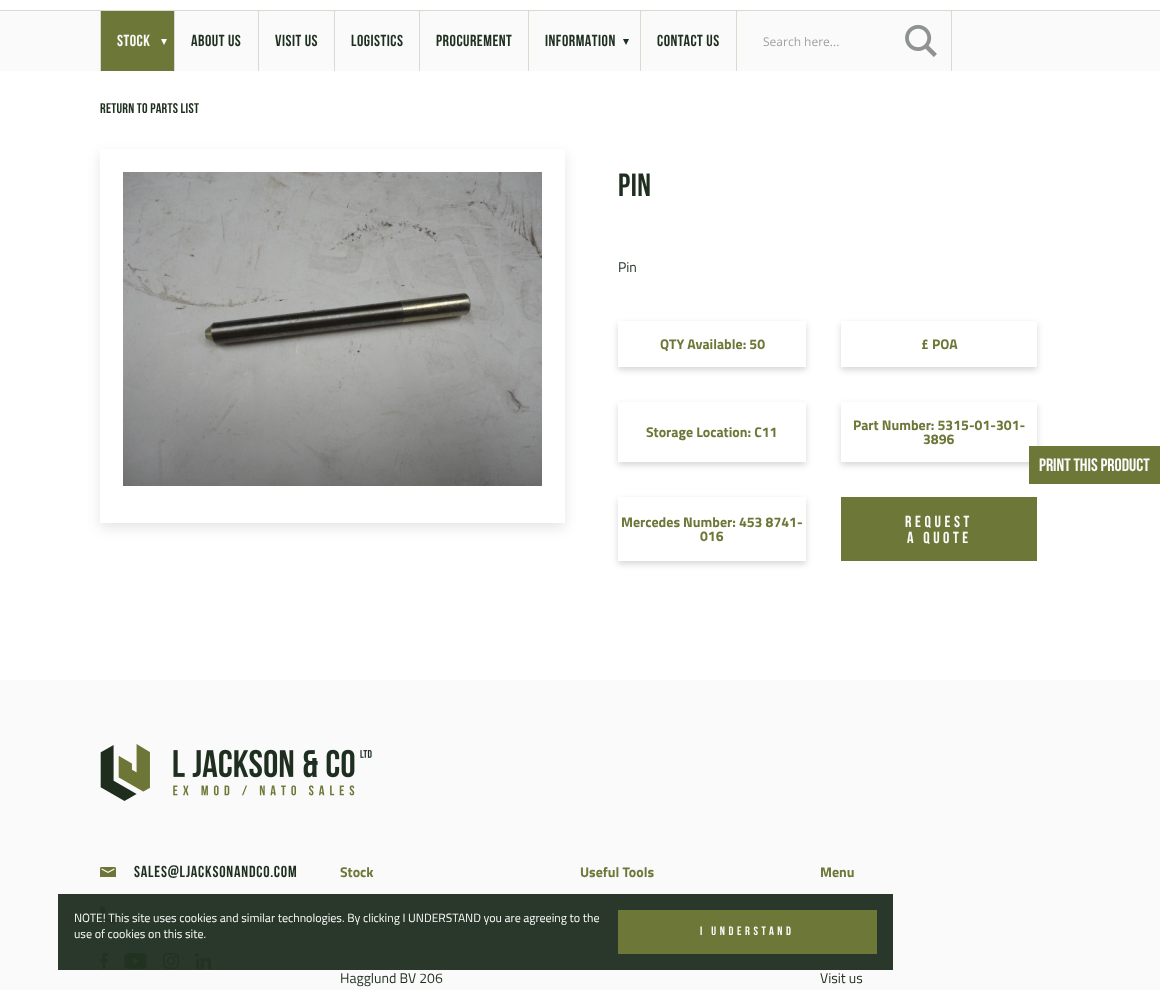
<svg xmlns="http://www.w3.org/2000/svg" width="1160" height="990">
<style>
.a{font:bold 16px Bebas Neue;letter-spacing:0.5px;fill:#fafafa}
.b{font:bold 16px Bebas Neue;letter-spacing:0.5px;fill:#1e2e1f}
.c{font:12px Open Sans;fill:#9fa29f}
.d{font:bold 14px Bebas Neue;letter-spacing:0.25px;fill:#1e2e1f}
.e{font:bold 32px Bebas Neue;letter-spacing:0.5px;fill:#1e2e1f}
.f{font:14px Titillium Web;fill:#1e2e1f}
.g{font:bold 14px Titillium Web;fill:#6d7738}
.h{font:bold 16px Bebas Neue;letter-spacing:3.6px;fill:#fafafa}
.i{font:bold 18px Bebas Neue;fill:#fafafa}
.j{font:bold 16px Bebas Neue;letter-spacing:0.8px;fill:#1e2e1f}
.k{font:12px Titillium Web;fill:#fafafa}
.l{font:bold 12px Bebas Neue;letter-spacing:3.6px;fill:#fafafa}
</style>
<defs>
<clipPath id="clip1"><path d="M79 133h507v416h-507zm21 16h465v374h-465z" clip-rule="evenodd"/></clipPath>
<clipPath id="clip2"><path d="M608 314h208v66h-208zm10 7h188v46h-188z" clip-rule="evenodd"/></clipPath>
<clipPath id="clip3"><path d="M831 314h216v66h-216zm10 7h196v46h-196z" clip-rule="evenodd"/></clipPath>
<clipPath id="clip4"><path d="M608 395h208v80h-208zm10 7h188v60h-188z" clip-rule="evenodd"/></clipPath>
<clipPath id="clip5"><path d="M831 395h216v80h-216zm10 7h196v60h-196z" clip-rule="evenodd"/></clipPath>
<clipPath id="clip6"><path d="M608 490h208v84h-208zm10 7h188v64h-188z" clip-rule="evenodd"/></clipPath>
</defs>
<rect width="100%" height="100%" fill="#fff"/>
<path fill="#fafafa" d="M0 11h1160v60H0z"/>
<path fill="#ddd9d0" d="M0 10h1160v1H0z"/>
<path fill="#6d7738" d="M101 11h73v60H101z"/>
<path fill="#ddd9d0" d="M100 11h1v60H100z"/>
<path fill="#fff" d="M167 39h-6l3 6z"/>
<path fill="#ddd9d0" d="M174 11h1v60H174z"/>
<path fill="#ddd9d0" d="M258 11h1v60H258z"/>
<path fill="#ddd9d0" d="M334 11h1v60H334z"/>
<path fill="#ddd9d0" d="M419 11h1v60H419z"/>
<path fill="#ddd9d0" d="M528 11h1v60H528z"/>
<path fill="#1e2e1f" d="M629 39h-6l3 6z"/>
<path fill="#ddd9d0" d="M640 11h1v60H640z"/>
<path fill="#ddd9d0" d="M951 11h1v60H951z"/>
<path fill="#ddd9d0" d="M736 11h1v60H736z"/>
<image href="1.png" x="905" y="24" width="32" height="33"/>
<g clip-path="url(#clip1)">
<path fill="#0000001a" filter="blur(6.5px)" d="M100 154h465v374H100z"/>
</g>
<image href="2.png" x="123" y="172" width="419" height="314"/>
<g clip-path="url(#clip2)">
<path fill="#00000029" filter="blur(3px)" d="M618 324h188v46H618z"/>
</g>
<g clip-path="url(#clip3)">
<path fill="#00000029" filter="blur(3px)" d="M841 324h196v46H841z"/>
</g>
<g clip-path="url(#clip4)">
<path fill="#00000029" filter="blur(3px)" d="M618 405h188v60H618z"/>
</g>
<g clip-path="url(#clip5)">
<path fill="#00000029" filter="blur(3px)" d="M841 405h196v60H841z"/>
</g>
<g clip-path="url(#clip6)">
<path fill="#00000029" filter="blur(3px)" d="M618 500h188v64H618z"/>
</g>
<path fill="#6d7738" d="M841 497h196v64H841z"/>
<path fill="#6d7738" d="M1029 446h131v38H1029z"/>
<path fill="#fafafa" d="M0 680h1160v310H0z"/>
<path fill="#29382a" d="M58 894h835v76H58z"/>
<image href="3.png" x="100" y="744" width="272" height="57"/>
<image href="4.png" x="100" y="867" width="16" height="10"/>
<image href="5.png" x="100" y="907" width="16" height="16"/>
<image href="6.png" x="100" y="953" width="8" height="16"/>
<image href="7.png" x="124" y="953" width="23" height="16"/>
<image href="8.png" x="163" y="953" width="16" height="16"/>
<image href="9.png" x="195" y="953" width="16" height="16"/>
<path fill="#6d7738" d="M618 910h259v44H618z"/>
<text class="a" x="117" y="46">STOCK</text>
<text class="b" x="191" y="46">ABOUT US</text>
<text class="b" x="275" y="46">VISIT US</text>
<text class="b" x="351" y="46">LOGISTICS</text>
<text class="b" x="436" y="46">PROCUREMENT</text>
<text class="b" x="545" y="46">INFORMATION</text>
<text class="b" x="657" y="46">CONTACT US</text>
<text class="c" x="763" y="46">Search here...</text>
<text class="d" x="100" y="113">Return to parts list</text>
<text class="e" x="618" y="196">Pin</text>
<text class="f" x="618" y="272">Pin</text>
<text class="g" x="660" y="349">QTY Available: 50</text>
<text class="g" x="921" y="349">£ POA</text>
<text class="g" x="646" y="437">Storage Location: C11</text>
<text class="g" x="853" y="430">Part Number: 5315-01-301-</text>
<text class="g" x="923" y="444">3896</text>
<text class="g" x="621" y="527">Mercedes Number: 453 8741-</text>
<text class="g" x="700" y="541">016</text>
<text class="h" x="905" y="527">REQUEST</text>
<text class="h" x="907" y="543">A QUOTE</text>
<text class="i" x="1039" y="471">Print This Product</text>
<text class="j" x="134" y="877">sales@ljacksonandco.com</text>
<text class="g" x="340" y="877">Stock</text>
<text class="f" x="340" y="983">Hagglund BV 206</text>
<text class="g" x="580" y="877">Useful Tools</text>
<text class="g" x="820" y="877">Menu</text>
<text class="f" x="820" y="983">Visit us</text>
<text class="k" x="74" y="922">NOTE! This site uses cookies and similar technologies. By clicking I UNDERSTAND you are agreeing to the</text>
<text class="k" x="74" y="938">use of cookies on this site.</text>
<text class="l" x="700" y="935">I UNDERSTAND</text>
</svg>
